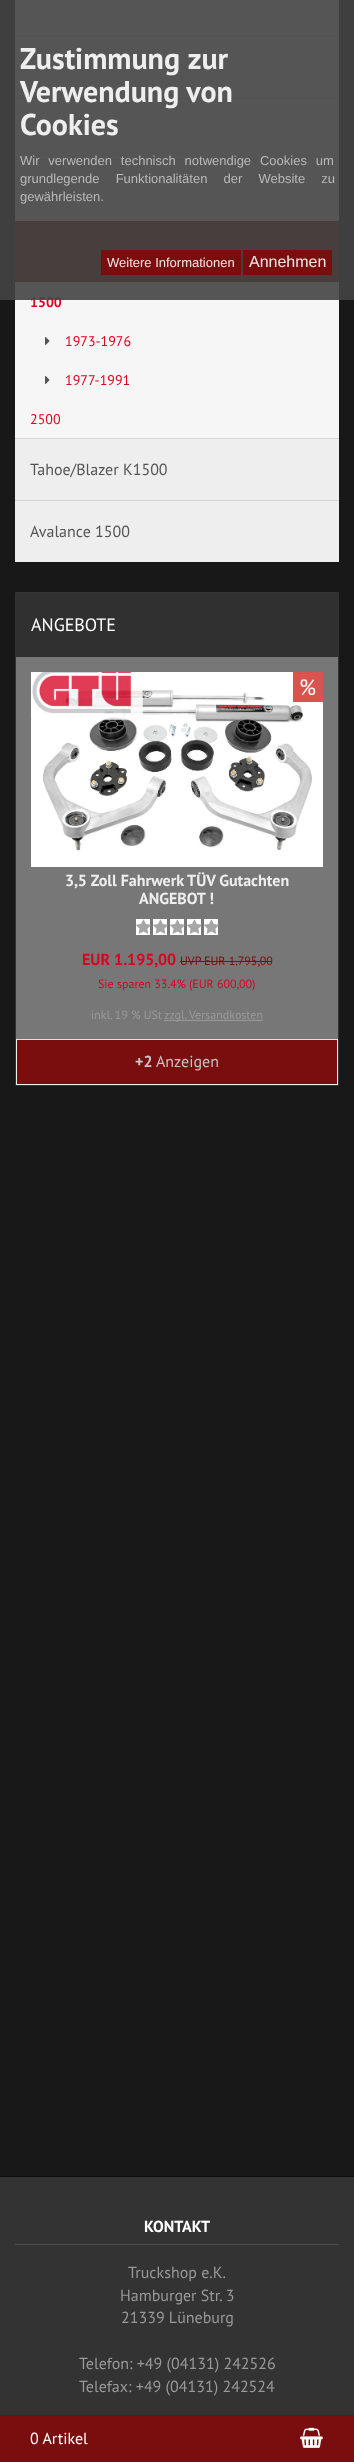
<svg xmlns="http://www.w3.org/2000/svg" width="354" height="2462">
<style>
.a{font:bold 14px PT Sans;fill:#dd0020}
.b{font:13px Liberation Sans;fill:#b9b9b9}
.c{font:13px Liberation Sans;fill:#f2e7e7}
.d{font:16px Liberation Sans;fill:#f2e7e7}
.e{font:bold 30px PT Sans;fill:#eee}
.f{font:14px PT Sans;fill:#dd0020}
.g{font:16px PT Sans;fill:#555}
.h{font:18px PT Sans;fill:#fff}
.i{font:22px PT Sans;fill:#fff}
.j{font:bold 16px PT Sans;fill:#eee}
.k{font:bold 16px PT Sans;fill:#dd0020}
.l{font:12px PT Sans;fill:#7a0e0e}
.m{font:12px PT Sans;fill:#dd0020}
.n{font:12px PT Sans;fill:#999}
.o{font:bold 16px PT Sans;fill:#c4c4c4}
.p{font:16px PT Sans;fill:#c4c4c4}
.q{font:bold 16px PT Sans;fill:#fff}
.r{font:16px PT Sans;fill:#999}
.s{font:16px PT Sans;fill:#fff}
</style>
<rect width="100%" height="100%" fill="#181818"/>
<path fill="#eee" d="M15 0h324v36H15z"/>
<path fill="#eee" d="M15 37h324v61H15z"/>
<path fill="#d5d5d5" d="M15 36h324v1H15z"/>
<path fill="#eee" d="M15 99h324v60H15z"/>
<path fill="#d5d5d5" d="M15 98h324v1H15z"/>
<path fill="#eee" d="M15 160h324v61H15z"/>
<path fill="#d5d5d5" d="M15 159h324v1H15z"/>
<path fill="#7a0e0e" d="M15 221h324v61H15z"/>
<path fill="#f6f6f6" d="M15 282h324v156H15z"/>
<image href="1.png" x="45" y="337" width="5" height="8"/>
<image href="1.png" x="45" y="376" width="5" height="8"/>
<path fill="#eee" d="M15 439h324v61H15z"/>
<path fill="#d5d5d5" d="M15 438h324v1H15z"/>
<path fill="#eee" d="M15 501h324v61H15z"/>
<path fill="#d5d5d5" d="M15 500h324v1H15z"/>
<path fill="none" stroke="#333" d="M15.5 592.5h323v493H15.5z"/>
<path fill="#303030" d="M16 593h322v64H16z"/>
<path fill="#777" d="M16 657h322v382H16z"/>
<image href="2.png" x="31" y="672" width="292" height="195"/>
<path fill="#d9534f" d="M293 672h30v30H293z"/>
<path fill="#fff" d="M136 919h14v16H136z"/>
<image href="3.png" x="136" y="919" width="15" height="15"/>
<path fill="#fff" d="M153 919h14v16H153z"/>
<image href="3.png" x="153" y="919" width="15" height="15"/>
<path fill="#fff" d="M170 919h14v16H170z"/>
<image href="3.png" x="170" y="919" width="15" height="15"/>
<path fill="#fff" d="M187 919h14v16H187z"/>
<image href="3.png" x="187" y="919" width="15" height="15"/>
<path fill="#fff" d="M204 919h14v16H204z"/>
<image href="3.png" x="204" y="919" width="15" height="15"/>
<path fill="#7a0e0e" d="M180 961h92v1H180z"/>
<path fill="#999" d="M164 1020h99v1H164z"/>
<path fill="#7a0e0e" d="M17 1040h320v44H17z"/>
<path fill="#e0e0e0" d="M16 1039h322v1H16z"/>
<path fill="#eee" d="M337 1039h1v46H337z"/>
<path fill="#eee" d="M16 1084h322v1H16z"/>
<path fill="#eee" d="M16 1039h1v46H16z"/>
<path fill="#333" d="M0 2177h354v238H0z"/>
<path fill="#0d0d0d" d="M0 2176h354v1H0z"/>
<path fill="#4d4d4d" d="M15 2244h324v1H15z"/>
<path fill="#7a0e0e" d="M0 2415h354v47H0z"/>
<image href="4.png" x="300" y="2427" width="23" height="21"/>
<text class="a" x="30" y="307">1500</text>
<path fill="#444444e6" d="M0 0h354v300H0z"/>
<text class="b" x="20" y="201">gewährleisten.</text>
<text class="b" x="20" y="183" word-spacing="12.5">grundlegende Funktionalitäten der Website zu</text>
<text class="b" x="20" y="165" word-spacing="5.25">Wir verwenden technisch notwendige Cookies um</text>
<path fill="#7a0e0e" d="M101 250h140v25H101z"/>
<text class="c" x="107" y="267">Weitere Informationen</text>
<path fill="#7a0e0e" d="M243 250h89v25H243z"/>
<text class="d" x="249" y="267">Annehmen</text>
<text class="e" x="20" y="135">Cookies</text>
<text class="e" x="20" y="102">Verwendung von</text>
<text class="e" x="20" y="69">Zustimmung zur</text>
<text class="f" x="65" y="346">1973-1976</text>
<text class="f" x="65" y="385">1977-1991</text>
<text class="f" x="30" y="424">2500</text>
<text class="g" x="30" y="475">Tahoe/Blazer K1500</text>
<text class="g" x="30" y="537">Avalance 1500</text>
<text class="h" x="31" y="631">ANGEBOTE</text>
<text class="i" x="299" y="695">%</text>
<text class="j" x="65" y="886">3,5 Zoll Fahrwerk TÜV Gutachten</text>
<text class="j" x="139" y="904">ANGEBOT !</text>
<text class="k" x="82" y="965">EUR 1.195,00</text>
<text class="l" x="180" y="965">UVP EUR 1.795,00</text>
<text class="m" x="98" y="988">Sie sparen 33.4% (EUR 600,00)</text>
<text class="n" x="91" y="1019">inkl. 19 % USt</text>
<text class="n" x="164" y="1019">zzgl. Versandkosten</text>
<text class="o" x="135" y="1067">+2</text>
<text class="p" x="156" y="1067">Anzeigen</text>
<text class="q" x="144" y="2232">KONTAKT</text>
<text class="r" x="128" y="2278">Truckshop e.K.</text>
<text class="r" x="120" y="2301">Hamburger Str. 3</text>
<text class="r" x="121" y="2323">21339 Lüneburg</text>
<text class="r" x="79" y="2369">Telefon: +49 (04131) 242526</text>
<text class="r" x="79" y="2392">Telefax: +49 (04131) 242524</text>
<text class="s" x="30" y="2444">0 Artikel</text>
</svg>
